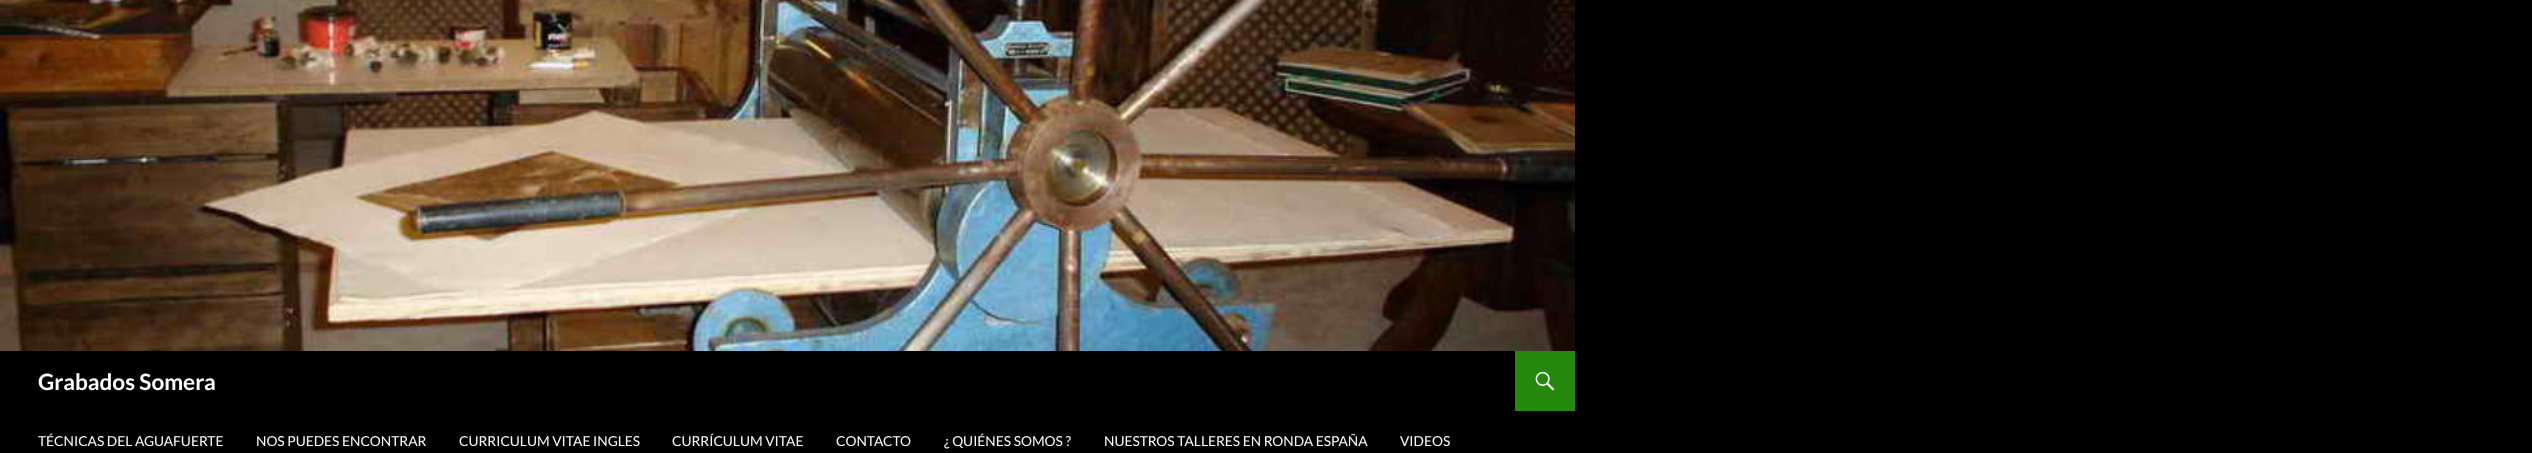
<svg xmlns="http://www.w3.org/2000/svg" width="2532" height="453">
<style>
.a{font:bold 22.5px Lato;fill:#fff}
.b{font:13.75px Lato;fill:#fff}
</style>
<rect width="100%" height="100%" fill="#000"/>
<image href="1.png" x="0" y="0" width="1575" height="351"/>
<path fill="#24890d" d="M1515 351h60v60H1515z"/>
<image href="2.png" x="1535" y="371" width="20" height="20"/>
<text class="a" x="38" y="390">Grabados Somera</text>
<text class="b" x="38" y="446">TÉCNICAS DEL AGUAFUERTE</text>
<text class="b" x="256" y="446">NOS PUEDES ENCONTRAR</text>
<text class="b" x="459" y="446">CURRICULUM VITAE INGLES</text>
<text class="b" x="672" y="446">CURRÍCULUM VITAE</text>
<text class="b" x="836" y="446">CONTACTO</text>
<text class="b" x="944" y="446">¿ QUIÉNES SOMOS ?</text>
<text class="b" x="1104" y="446">NUESTROS TALLERES EN RONDA ESPAÑA</text>
<text class="b" x="1400" y="446">VIDEOS</text>
</svg>
